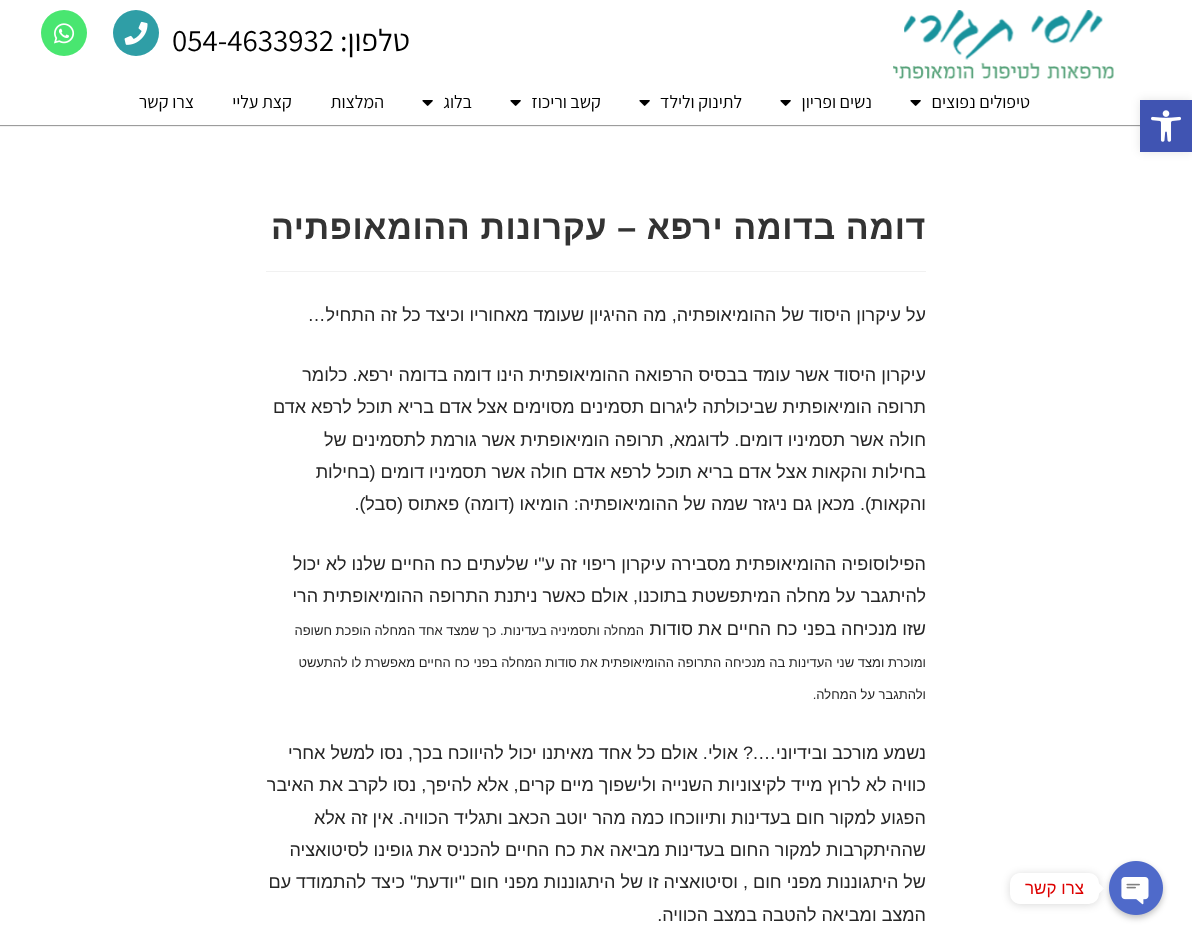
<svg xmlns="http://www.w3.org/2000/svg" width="1192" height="940">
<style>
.a{font:31px Assistant;direction:rtl;fill:#000}
.b{font:31px Assistant;fill:#000}
.c{font:18px Assistant;direction:rtl;fill:#000}
.d{font:bold 34px Liberation Sans;letter-spacing:0.6px;direction:rtl;fill:#333}
.e{font:18px Liberation Sans;direction:rtl;fill:#262626}
.f{font:13px Liberation Sans;direction:rtl;fill:#262626}
.g{font:17px Liberation Sans;direction:rtl;fill:#d00}
</style>
<rect width="100%" height="100%" fill="#fff"/>
<path fill="#f1f1f1" d="M0 126h1140v1H0z"/>
<path fill="#9c9c9c" d="M0 125h1140v1H0z"/>
<path fill="#0000001a" filter="blur(5px)" d="M1140 100h52v52H1140z"/>
<path fill="#4054b2" d="M1140 100h52v52H1140z"/>
<image href="1.png" x="1151" y="110" width="30" height="32"/>
<image href="2.png" x="893" y="10" width="221" height="69"/>
<circle fill="#2f9ea6" cx="136" cy="33" r="23"/>
<image href="3.png" x="124" y="21" width="24" height="24"/>
<circle fill="#49e670" cx="64" cy="33" r="23"/>
<image href="4.png" x="54" y="23" width="21" height="21"/>
<image href="5.png" x="910" y="100" width="11" height="6"/>
<image href="5.png" x="780" y="100" width="11" height="6"/>
<image href="5.png" x="639" y="100" width="11" height="6"/>
<image href="5.png" x="510" y="100" width="11" height="6"/>
<image href="5.png" x="422" y="100" width="11" height="6"/>
<path fill="#f1f1f1" d="M266 271h660v1H266z"/>
<rect fill="#00000026" filter="blur(4px)" x="1010" y="874" width="89" height="31" rx="10"/>
<path fill="#fff" d="M1099 893.5v-10l5 5z"/>
<rect fill="#00000040" filter="blur(3px)" x="1109" y="864" width="54" height="54" rx="27"/>
<image href="6.png" x="1109" y="861" width="54" height="54"/>
<rect fill="#fff" x="1010" y="873" width="89" height="31" rx="10"/>
<text class="a" x="410" y="51">טלפון:</text>
<text class="b" x="172" y="51">054-4633932</text>
<text class="c" x="1030" y="108">טיפולים נפוצים</text>
<text class="c" x="872" y="108">נשים ופריון</text>
<text class="c" x="742" y="108">לתינוק ולילד</text>
<text class="c" x="601" y="108">קשב וריכוז</text>
<text class="c" x="472" y="108">בלוג</text>
<text class="c" x="384" y="108">המלצות</text>
<text class="c" x="292" y="108">קצת עליי</text>
<text class="c" x="194" y="108">צרו קשר</text>
<text class="d" x="926" y="239">דומה בדומה ירפא – עקרונות ההומאופתיה</text>
<text class="e" x="926" y="321">על עיקרון היסוד של ההומיאופתיה, מה ההיגיון שעומד מאחוריו וכיצד כל זה התחיל…</text>
<text class="e" x="926" y="381">עיקרון היסוד אשר עומד בבסיס הרפואה ההומיאופתית הינו דומה בדומה ירפא. כלומר</text>
<text class="e" x="926" y="413">תרופה הומיאופתית שביכולתה ליגרום תסמינים מסוימים אצל אדם בריא תוכל לרפא אדם</text>
<text class="e" x="926" y="446">חולה אשר תסמיניו דומים. לדוגמא, תרופה הומיאופתית אשר גורמת לתסמינים של</text>
<text class="e" x="926" y="478">בחילות והקאות אצל אדם בריא תוכל לרפא אדם חולה אשר תסמיניו דומים (בחילות</text>
<text class="e" x="926" y="510">והקאות). מכאן גם ניגזר שמה של ההומיאופתיה: הומיאו (דומה) פאתוס (סבל).</text>
<text class="e" x="926" y="570">הפילוסופיה ההומיאופתית מסבירה עיקרון ריפוי זה ע"י שלעתים כח החיים שלנו לא יכול</text>
<text class="e" x="926" y="602">להיתגבר על מחלה המיתפשטת בתוכנו, אולם כאשר ניתנת התרופה ההומיאופתית הרי</text>
<text class="e" x="926" y="635">שזו מנכיחה בפני כח החיים את סודות</text>
<text class="f" x="644" y="635">המחלה ותסמיניה בעדינות. כך שמצד אחד המחלה הופכת חשופה</text>
<text class="f" x="926" y="667">ומוכרת ומצד שני העדינות בה מנכיחה התרופה ההומיאופתית את סודות המחלה בפני כח החיים מאפשרת לו להתעשט</text>
<text class="f" x="926" y="699">ולהתגבר על המחלה.</text>
<text class="e" x="926" y="759">נשמע מורכב ובידיוני….? אולי. אולם כל אחד מאיתנו יכול להיווכח בכך, נסו למשל אחרי</text>
<text class="e" x="926" y="791">כוויה לא לרוץ מייד לקיצוניות השנייה ולישפוך מיים קרים, אלא להיפך, נסו לקרב את האיבר</text>
<text class="e" x="926" y="824">הפגוע למקור חום בעדינות ותיווכחו כמה מהר יוטב הכאב ותגליד הכוויה. אין זה אלא</text>
<text class="e" x="926" y="856">שההיתקרבות למקור החום בעדינות מביאה את כח החיים להכניס את גופינו לסיטואציה</text>
<text class="e" x="926" y="888">של היתגוננות מפני חום , וסיטואציה זו של היתגוננות מפני חום "יודעת" כיצד להתמודד עם</text>
<text class="e" x="926" y="921">המצב ומביאה להטבה במצב הכוויה.</text>
<text class="g" x="1084" y="894">צרו קשר</text>
</svg>
